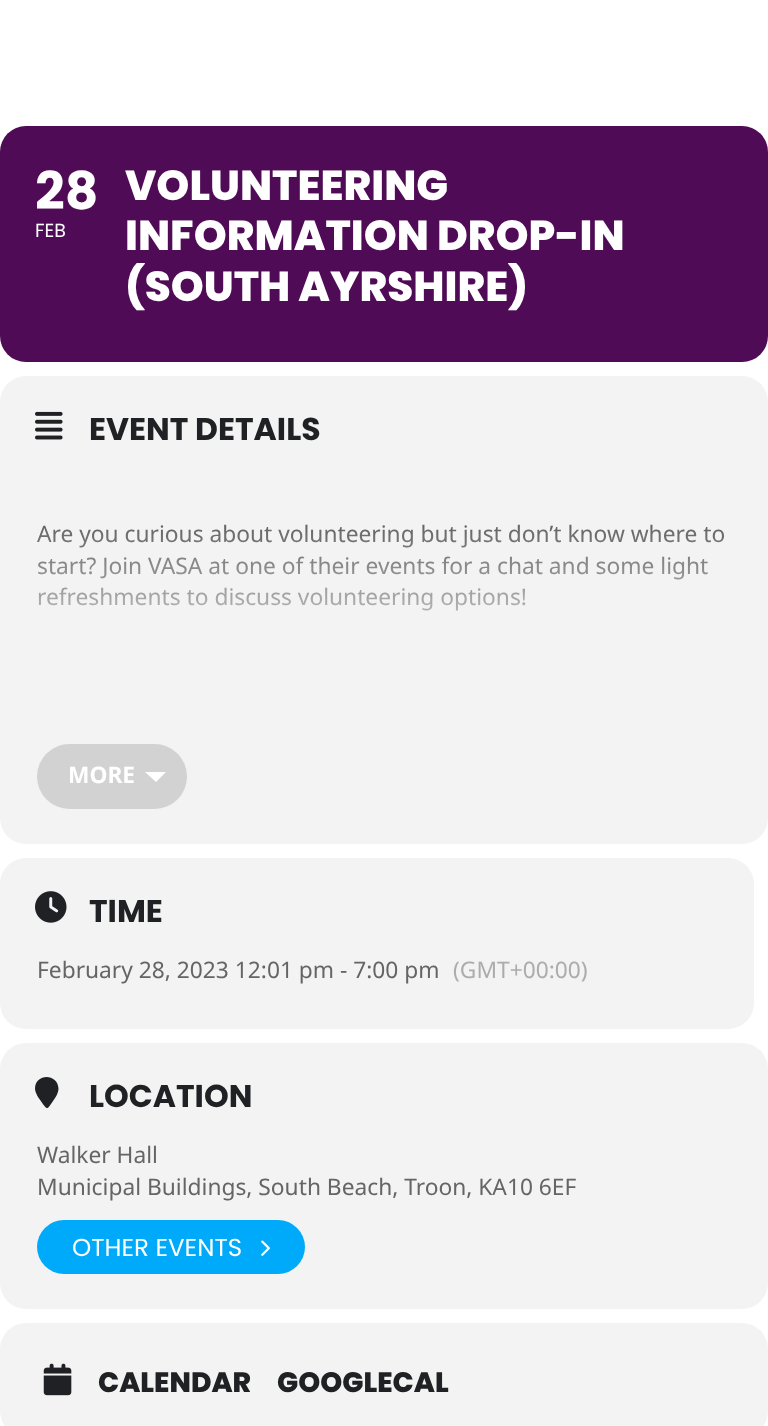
<svg xmlns="http://www.w3.org/2000/svg" width="768" height="1426">
<style>
.a{font:bold 52px Poppins;fill:#fff}
.b{font:19px Poppins;fill:#fff}
.c{font:800 42px Poppins;fill:#fff}
.d{font:bold 31.5px Poppins;fill:#202124}
.e{font:22.75px Noto Sans;fill:#656565}
.f{font:bold 22.75px Noto Sans;fill:#fff}
.g{font:22.75px Noto Sans;fill:#acacac}
.h{font:24.5px Poppins;fill:#fff}
.i{font:800 28px Poppins;fill:#202124}
</style>
<defs>
<linearGradient id="g1" gradientUnits="userSpaceOnUse" x1="385" y1="735" x2="385" y2="473"><stop offset="0.2" stop-color="#f3f3f3"/><stop offset="0.8" stop-color="#f3f3f3" stop-opacity="0"/></linearGradient>
</defs>
<rect width="100%" height="100%" fill="#fff"/>
<rect fill="#4f0b56" y="126" width="768" height="236" rx="26"/>
<rect fill="#f3f3f3" y="376" width="768" height="468" rx="26"/>
<image href="1.png" x="35" y="411" width="28" height="29"/>
<rect fill="#d2d2d2" x="37" y="744" width="150" height="65" rx="32.5"/>
<path fill="#fff" d="M145 772h21l-10 10z"/>
<rect fill="#f3f3f3" y="858" width="754" height="171" rx="26"/>
<image href="2.png" x="35" y="891" width="32" height="32"/>
<rect fill="#f3f3f3" y="1043" width="768" height="266" rx="26"/>
<path fill="#202124" d="M58.5 1088.5c0 4.5-3 9-5.5 12.5c-6 9-5.5 9.5-11.5 1c-2.5-3.5-6.5-9-6.5-13.5c0-15.5 23-15.5 23.5 0z"/>
<rect fill="#00aafb" x="37" y="1220" width="268" height="54" rx="27"/>
<image href="3.png" x="261" y="1240" width="9" height="16"/>
<rect fill="#f3f3f3" y="1323" width="768" height="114" rx="26"/>
<image href="4.png" x="43" y="1363" width="29" height="33"/>
<text class="a" x="35" y="209">28</text>
<text class="b" x="35" y="237">FEB</text>
<text class="c" x="125" y="200">VOLUNTEERING</text>
<text class="c" x="125" y="250">INFORMATION DROP-IN</text>
<text class="c" x="125" y="301">(SOUTH AYRSHIRE)</text>
<text class="d" x="89" y="440">EVENT DETAILS</text>
<text class="e" x="37" y="542">Are you curious about volunteering but just don’t know where to</text>
<text class="e" x="37" y="574">start? Join VASA at one of their events for a chat and some light</text>
<text class="e" x="37" y="605">refreshments to discuss volunteering options!</text>
<path fill="url(#g1)" d="M37 529h687v82H37z"/>
<text class="f" x="68" y="783">MORE</text>
<text class="d" x="89" y="922">TIME</text>
<text class="e" x="37" y="978">February 28, 2023 12:01 pm - 7:00 pm</text>
<text class="g" x="453" y="978">(GMT+00:00)</text>
<text class="d" x="89" y="1107">LOCATION</text>
<text class="e" x="37" y="1163">Walker Hall</text>
<text class="e" x="37" y="1195">Municipal Buildings, South Beach, Troon, KA10 6EF</text>
<text class="h" x="72" y="1256">OTHER EVENTS</text>
<text class="i" x="98" y="1392">CALENDAR</text>
<text class="i" x="277" y="1392">GOOGLECAL</text>
</svg>
